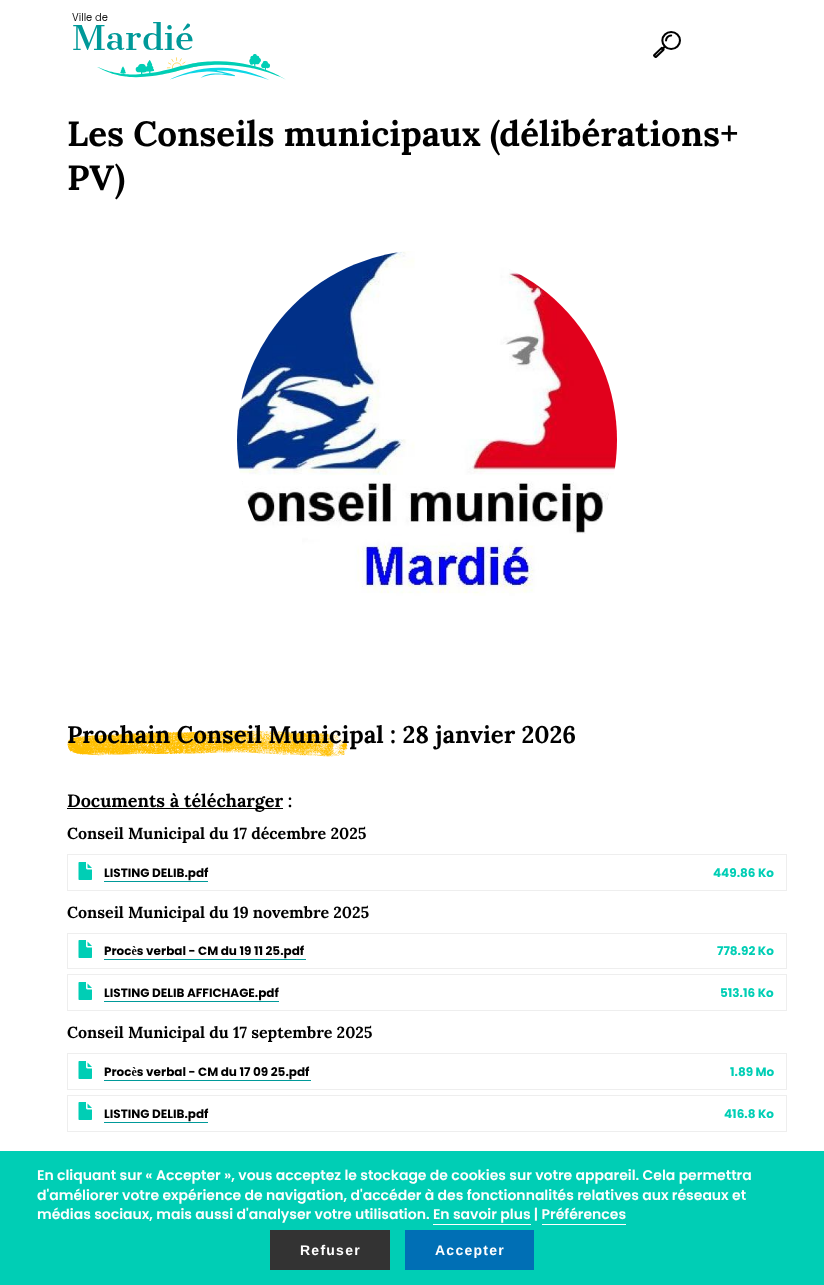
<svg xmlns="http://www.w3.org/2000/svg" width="824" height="1285">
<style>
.a{font:bold 35px Lora;fill:#000}
.b{font:bold 24px Lora;fill:#000}
.c{font:bold 18px Lora;fill:#000}
.d{font:bold 16px Lora;fill:#000}
.e{font:bold 12px Poppins;fill:#000}
.f{font:bold 12px Poppins;fill:#00ceb5}
.g{font:600 14px Poppins;fill:#fff}
.h{font:bold 14px Liberation Sans;letter-spacing:1.25px;fill:#fff}
</style>
<rect width="100%" height="100%" fill="#fff"/>
<image href="1.png" x="72" y="13" width="214" height="67"/>
<image href="2.png" x="653" y="31" width="28" height="27"/>
<image href="3.png" x="237" y="251" width="380" height="345"/>
<image href="4.png" x="67" y="730" width="281" height="27"/>
<path fill="#000" d="M67 808h216v1H67z"/>
<path fill="#eee" d="M67 854h720v1H67z"/>
<path fill="#eee" d="M67 890h634v1H67z"/>
<path fill="#eee" d="M67 854h1v37H67z"/>
<image href="5.png" x="78" y="862" width="14" height="18"/>
<path fill="#099" d="M104 881h104v1H104z"/>
<path fill="#eee" d="M786 854h1v37H786z"/>
<path fill="#eee" d="M701 890h86v1H701z"/>
<path fill="#eee" d="M67 933h720v1H67z"/>
<path fill="#eee" d="M67 968h638v1H67z"/>
<path fill="#eee" d="M67 933h1v36H67z"/>
<image href="5.png" x="78" y="940" width="14" height="18"/>
<path fill="#099" d="M104 959h202v1H104z"/>
<path fill="#eee" d="M786 933h1v36H786z"/>
<path fill="#eee" d="M705 968h82v1H705z"/>
<path fill="#eee" d="M67 974h720v1H67z"/>
<path fill="#eee" d="M67 1010h641v1H67z"/>
<path fill="#eee" d="M67 974h1v37H67z"/>
<image href="5.png" x="78" y="982" width="14" height="18"/>
<path fill="#099" d="M104 1001h175v1H104z"/>
<path fill="#eee" d="M786 974h1v37H786z"/>
<path fill="#eee" d="M708 1010h79v1H708z"/>
<path fill="#eee" d="M67 1053h720v1H67z"/>
<path fill="#eee" d="M67 1089h651v1H67z"/>
<path fill="#eee" d="M67 1053h1v37H67z"/>
<image href="5.png" x="78" y="1061" width="14" height="18"/>
<path fill="#099" d="M104 1080h207v1H104z"/>
<path fill="#eee" d="M786 1053h1v37H786z"/>
<path fill="#eee" d="M718 1089h69v1H718z"/>
<path fill="#eee" d="M67 1095h720v1H67z"/>
<path fill="#eee" d="M67 1131h645v1H67z"/>
<path fill="#eee" d="M67 1095h1v37H67z"/>
<image href="5.png" x="78" y="1102" width="14" height="18"/>
<path fill="#099" d="M104 1122h104v1H104z"/>
<path fill="#eee" d="M786 1095h1v37H786z"/>
<path fill="#eee" d="M712 1131h75v1H712z"/>
<path fill="#00ceb5" d="M0 1151h824v134H0z"/>
<path fill="#fff" d="M433 1224h98v1H433z"/>
<path fill="#fff" d="M542 1224h84v1H542z"/>
<path fill="#333" d="M270 1230h120v40H270z"/>
<path fill="#006fb5" d="M405 1230h129v40H405z"/>
<text class="a" x="67" y="146">Les Conseils municipaux (délibérations+</text>
<text class="a" x="67" y="190">PV)</text>
<text class="b" x="67" y="743">Prochain Conseil Municipal : 28 janvier 2026</text>
<text class="c" x="67" y="807">Documents à télécharger :</text>
<text class="d" x="67" y="839">Conseil Municipal du 17 décembre 2025</text>
<text class="e" x="104" y="877">LISTING DELIB.pdf</text>
<text class="f" x="713" y="877">449.86 Ko</text>
<text class="d" x="67" y="918">Conseil Municipal du 19 novembre 2025</text>
<text class="e" x="104" y="955">Procès verbal - CM du 19 11 25.pdf</text>
<text class="f" x="717" y="955">778.92 Ko</text>
<text class="e" x="104" y="997">LISTING DELIB AFFICHAGE.pdf</text>
<text class="f" x="720" y="997">513.16 Ko</text>
<text class="d" x="67" y="1038">Conseil Municipal du 17 septembre 2025</text>
<text class="e" x="104" y="1076">Procès verbal - CM du 17 09 25.pdf</text>
<text class="f" x="730" y="1076">1.89 Mo</text>
<text class="e" x="104" y="1118">LISTING DELIB.pdf</text>
<text class="f" x="724" y="1118">416.8 Ko</text>
<text class="g" x="37" y="1180">En cliquant sur « Accepter », vous acceptez le stockage de cookies sur votre appareil. Cela permettra</text>
<text class="g" x="37" y="1200">d'améliorer votre expérience de navigation, d'accéder à des fonctionnalités relatives aux réseaux et</text>
<text class="g" x="37" y="1219">médias sociaux, mais aussi d'analyser votre utilisation. En savoir plus | Préférences</text>
<text class="h" x="300" y="1255">Refuser</text>
<text class="h" x="435" y="1255">Accepter</text>
</svg>
